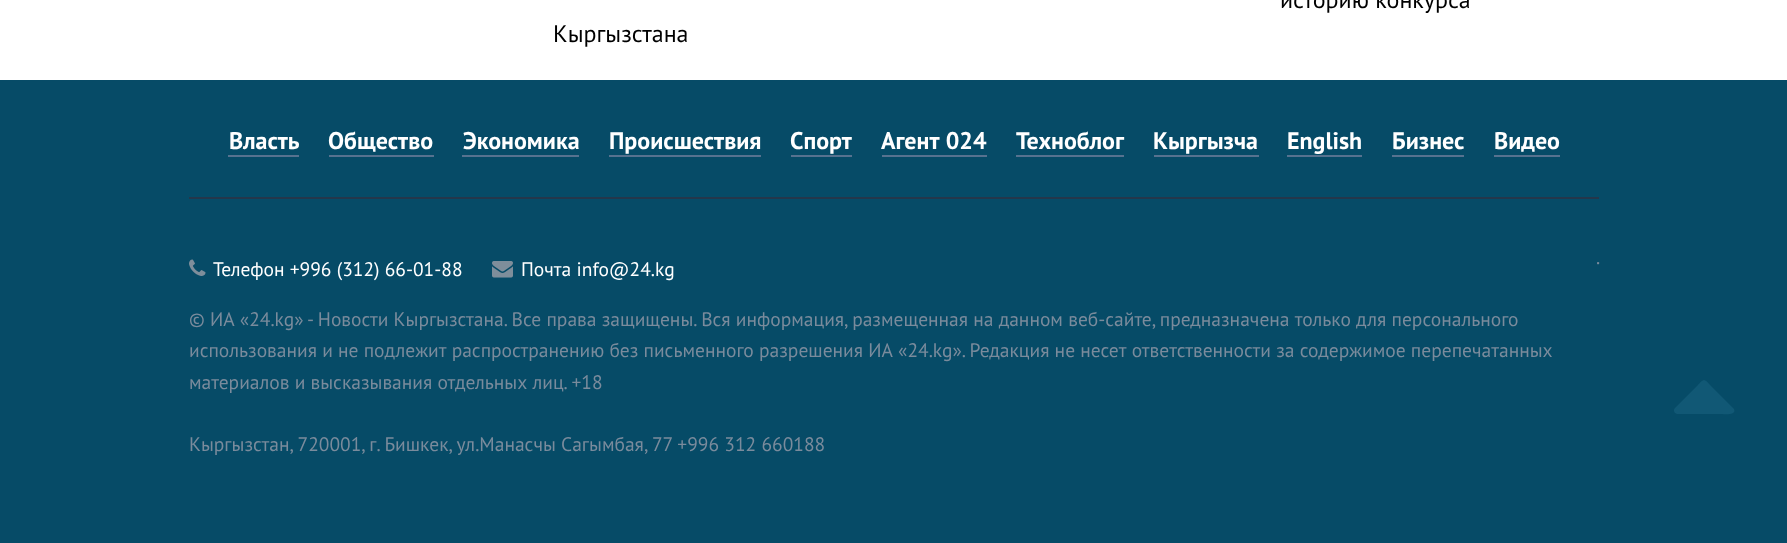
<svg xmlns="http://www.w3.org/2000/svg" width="1787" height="543">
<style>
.a{font:24px PT Sans;fill:#000}
.b{font:bold 24px PT Sans;fill:#fff}
.c{font:19.5px PT Sans;fill:#fff}
.d{font:19.5px PT Sans;fill:#7a8b9c}
</style>
<rect width="100%" height="100%" fill="#fff"/>
<path fill="#064b67" d="M0 80h1787v463H0z"/>
<path fill="#24374b" d="M189 197h1410v2H189z"/>
<path fill="#56728f" d="M228 155h71v2H228z"/>
<path fill="#56728f" d="M329 155h105v2H329z"/>
<path fill="#56728f" d="M462 155h117v2H462z"/>
<path fill="#56728f" d="M609 155h152v2H609z"/>
<path fill="#56728f" d="M791 155h61v2H791z"/>
<path fill="#56728f" d="M882 155h105v2H882z"/>
<path fill="#56728f" d="M1016 155h108v2H1016z"/>
<path fill="#56728f" d="M1154 155h105v2H1154z"/>
<path fill="#56728f" d="M1287 155h75v2H1287z"/>
<path fill="#56728f" d="M1392 155h72v2H1392z"/>
<path fill="#56728f" d="M1494 155h66v2H1494z"/>
<image href="1.png" x="189" y="259" width="17" height="17"/>
<image href="2.png" x="492" y="261" width="21" height="17"/>
<path fill="#115875" d="M1733 408l1 1c3 7-11 5-12 5h-45c-3-1-4-4-2-6l22-22c7-8 7-8 14 0z"/>
<text class="a" x="1280" y="8">историю конкурса</text>
<text class="a" x="553" y="42">Кыргызстана</text>
<text class="b" x="229" y="149">Власть</text>
<text class="b" x="328" y="149">Общество</text>
<text class="b" x="463" y="149">Экономика</text>
<text class="b" x="609" y="149">Происшествия</text>
<text class="b" x="790" y="149">Спорт</text>
<text class="b" x="881" y="149" word-spacing="1">Агент 024</text>
<text class="b" x="1016" y="149">Техноблог</text>
<text class="b" x="1153" y="149">Кыргызча</text>
<text class="b" x="1287" y="149">English</text>
<text class="b" x="1392" y="149">Бизнес</text>
<text class="b" x="1494" y="149">Видео</text>
<text class="c" x="213" y="276">Телефон +996 (312) 66-01-88</text>
<text class="c" x="521" y="276">Почта info@24.kg</text>
<text class="d" x="1596" y="264">.</text>
<text class="d" x="189" y="326">© ИА «24.kg» - Новости Кыргызстана. Все права защищены. Вся информация, размещенная на данном веб-сайте, предназначена только для персонального</text>
<text class="d" x="189" y="357">использования и не подлежит распространению без письменного разрешения ИА «24.kg». Редакция не несет ответственности за содержимое перепечатанных</text>
<text class="d" x="189" y="389">материалов и высказывания отдельных лиц. +18</text>
<text class="d" x="189" y="451">Кыргызстан, 720001, г. Бишкек, ул.Манасчы Сагымбая, 77 +996 312 660188</text>
</svg>
